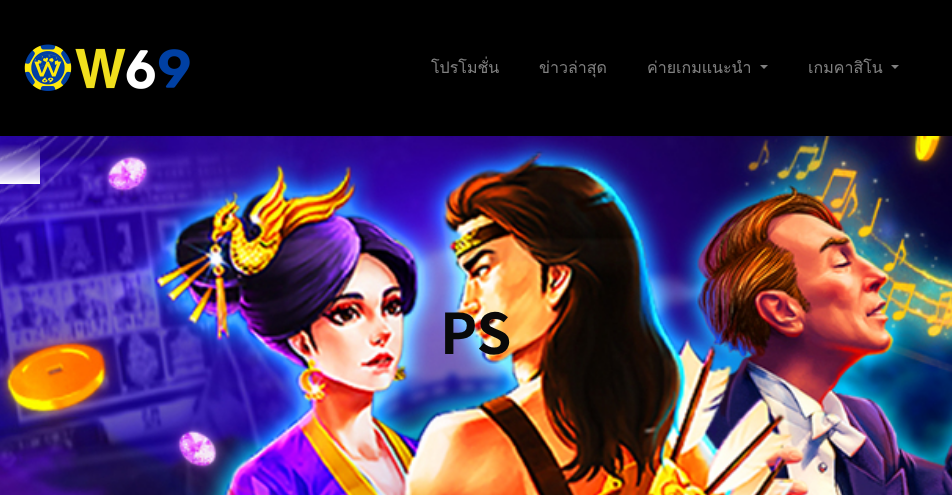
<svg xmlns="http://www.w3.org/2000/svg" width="952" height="495">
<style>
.a{font:16px Loma;fill:#808080}
.b{font:bold 56px Noto Sans TC;fill:#090909}
</style>
<rect width="100%" height="100%" fill="#000"/>
<image href="1.png" x="24" y="44" width="166" height="47"/>
<path fill="#808080" d="M760 65h8l-4 4z"/>
<path fill="#808080" d="M891 65h8l-4 4z"/>
<image href="2.png" x="0" y="136" width="952" height="359"/>
<text class="a" x="431" y="73">โปรโมชั่น</text>
<text class="a" x="539" y="73">ข่าวล่าสุด</text>
<text class="a" x="647" y="73">ค่ายเกมแนะนำ</text>
<text class="a" x="808" y="73">เกมคาสิโน</text>
<text class="b" x="440" y="354">PS</text>
</svg>
